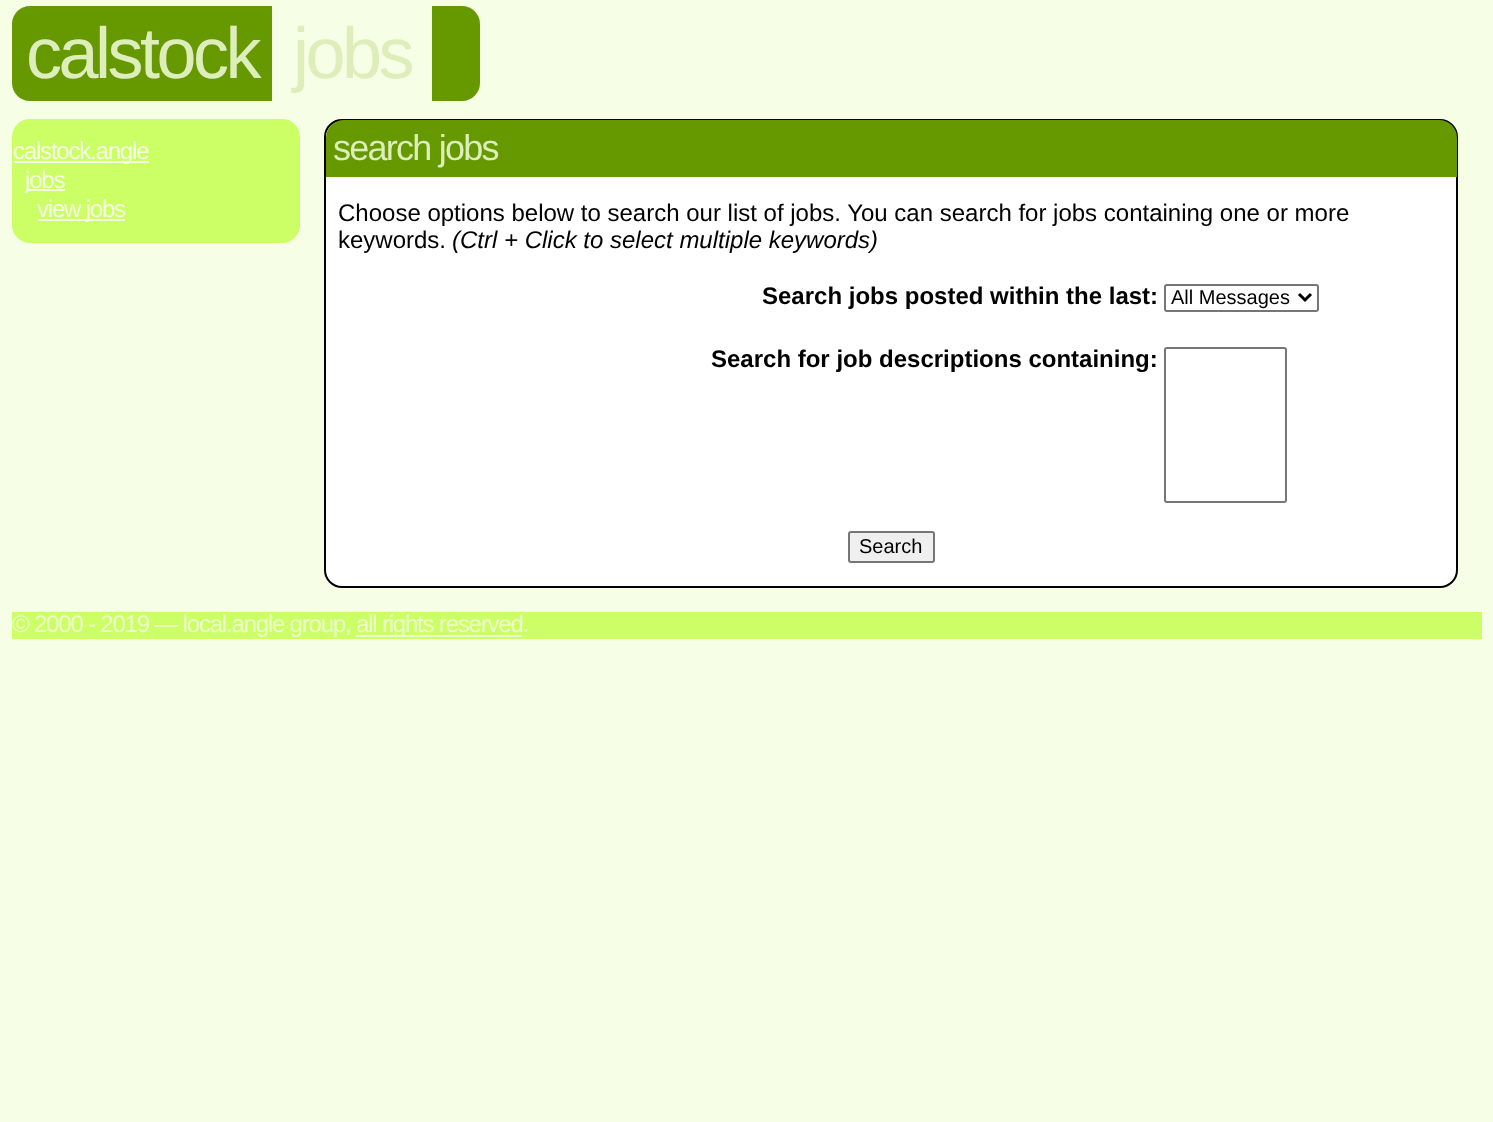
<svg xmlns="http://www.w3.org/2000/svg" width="1493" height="1122">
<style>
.a{font:72px Liberation Sans;letter-spacing:-3.5px;fill:#deb}
.b{font:24px Liberation Sans;letter-spacing:-1.2px;fill:#f6ffe6}
.c{font:36px Liberation Sans;letter-spacing:-1.75px;fill:#deb}
.d{font:24px Liberation Sans;fill:#000}
.e{font:italic 24px Liberation Sans;fill:#000}
.f{font:bold 24px Liberation Sans;fill:#000}
.g{font:20px Liberation Sans;fill:#000}
.h{font:24px Liberation Sans;letter-spacing:-1.2px;fill:#efc}
</style>
<rect width="100%" height="100%" fill="#f6ffe6"/>
<path fill="#690" d="M30 6h242v95h-242c-10 0-18-8-18-18v-59c0-10 8-18 18-18z"/>
<path fill="#690" d="M432 6h30c10 0 18 8 18 18v59c0 10-8 18-18 18h-30z"/>
<rect fill="#cf6" x="12" y="119" width="288" height="124" rx="18"/>
<path fill="#f6ffe6" d="M14 161h135v2H14z"/>
<path fill="#f6ffe6" d="M26 189h39v2H26z"/>
<path fill="#f6ffe6" d="M38 219h87v2H38z"/>
<rect fill="#fff" stroke="#000" stroke-width="2" x="325" y="120" width="1132" height="467" rx="17"/>
<path fill="#690" d="M344 120h1095c10 0 18 8 18 18v39h-1131v-39c0-10 8-18 18-18z"/>
<rect fill="none" stroke="#767676" stroke-width="2" x="1165" y="285" width="153" height="26" rx="2"/>
<path fill="none" stroke="#000" stroke-width="3" d="M1299 294l6 6l6-6"/>
<rect fill="none" stroke="#767676" stroke-width="2" x="1165" y="348" width="121" height="154" rx="2"/>
<rect fill="#efefef" stroke="#767676" stroke-width="2" x="849" y="532" width="85" height="30" rx="2"/>
<path fill="#cf6" d="M12 612h1470v27H12z"/>
<path fill="#efc" d="M356 635h166v2H356z"/>
<text class="a" x="26" y="78">calstock</text>
<text class="a" x="293" y="78">jobs</text>
<text class="b" x="13" y="159">calstock.angle</text>
<text class="b" x="25" y="188">jobs</text>
<text class="b" x="37" y="217">view jobs</text>
<text class="c" x="333" y="160">search jobs</text>
<text class="d" x="338" y="221">Choose options below to search our list of jobs. You can search for jobs containing one or more</text>
<text class="d" x="338" y="248">keywords.</text>
<text class="e" x="452" y="248">(Ctrl + Click to select multiple keywords)</text>
<text class="f" x="762" y="304">Search jobs posted within the last:</text>
<text class="g" x="1171" y="304">All Messages</text>
<text class="f" x="711" y="367">Search for job descriptions containing:</text>
<text class="g" x="859" y="553">Search</text>
<text class="h" x="12" y="632">© 2000 - 2019 — local.angle group,</text>
<text class="h" x="356" y="632">all rights reserved.</text>
</svg>
